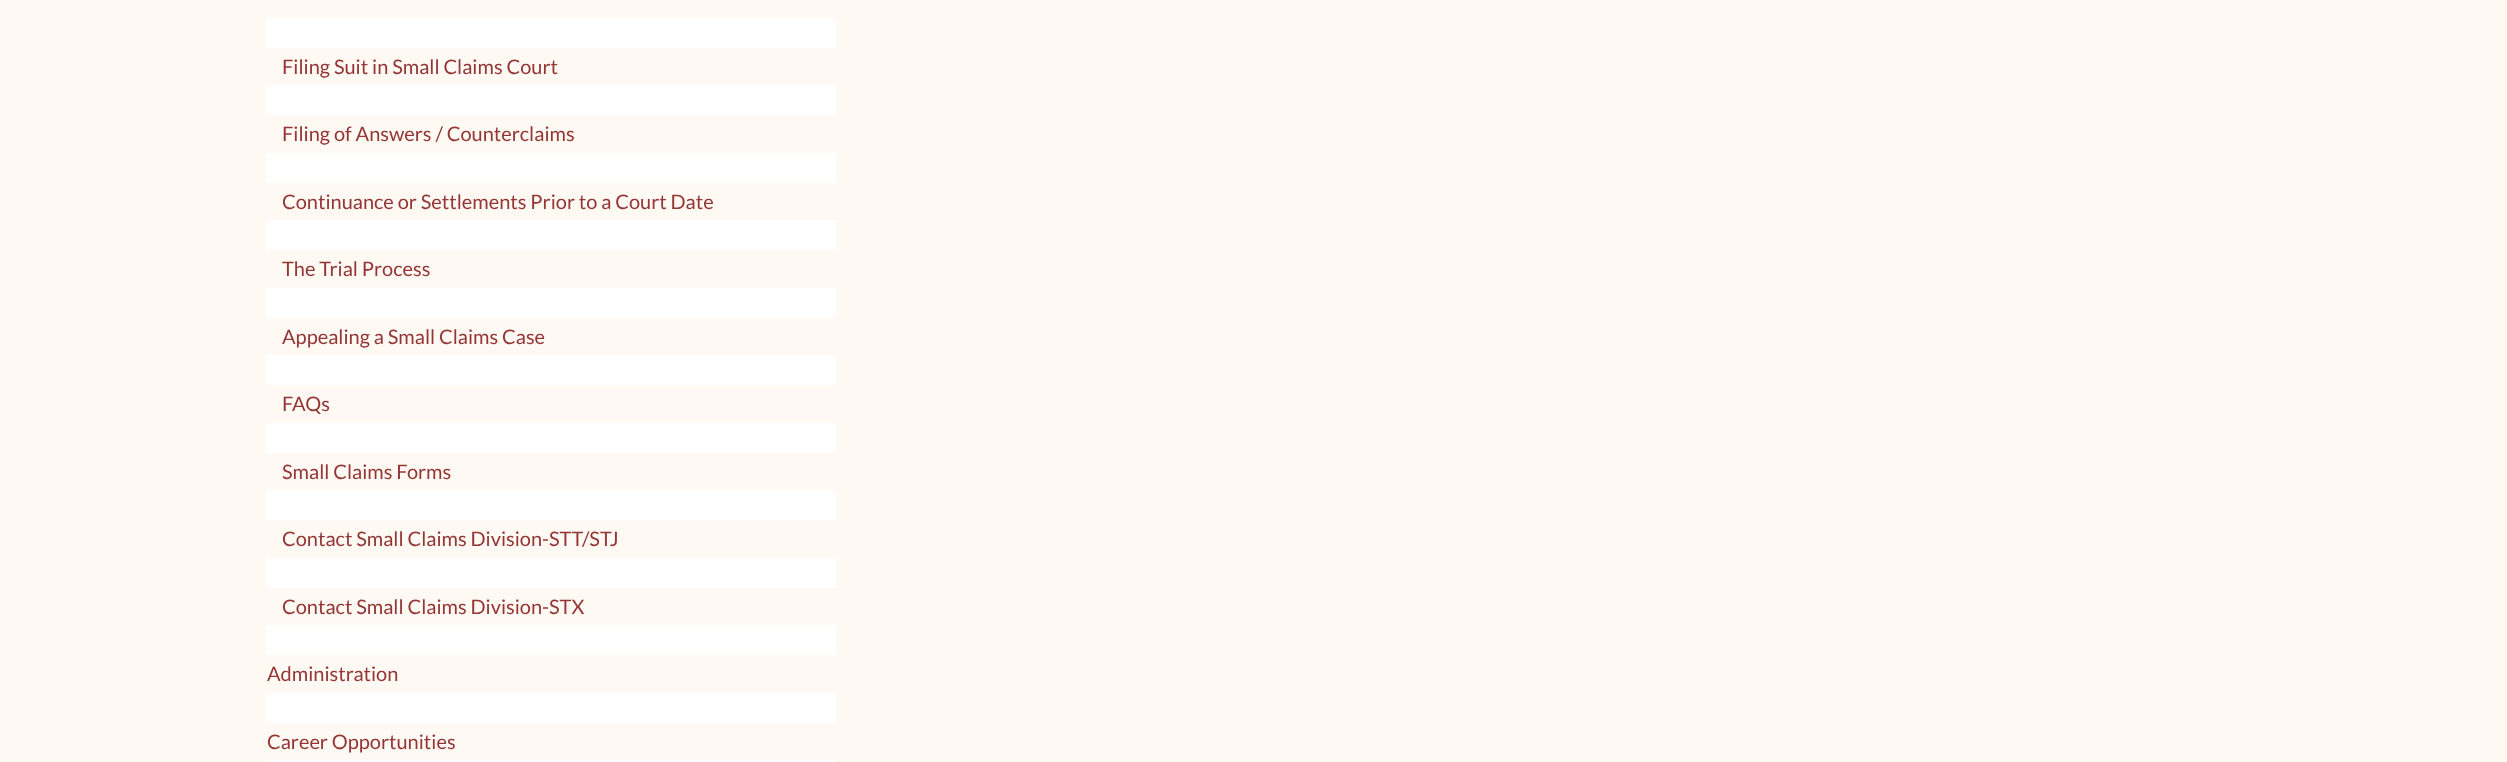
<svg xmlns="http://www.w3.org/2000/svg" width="2507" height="762">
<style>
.a{font:20px Lato;fill:#943536}
</style>
<rect width="100%" height="100%" fill="#fef9f3"/>
<path fill="#fff" d="M266 18h570v30H266z"/>
<path fill="#fff" d="M266 85h570v30H266z"/>
<path fill="#fff" d="M266 153h570v30H266z"/>
<path fill="#fff" d="M266 220h570v30H266z"/>
<path fill="#fff" d="M266 288h570v30H266z"/>
<path fill="#fff" d="M266 355h570v30H266z"/>
<path fill="#fff" d="M266 423h570v30H266z"/>
<path fill="#fff" d="M266 490h570v30H266z"/>
<path fill="#fff" d="M266 558h570v30H266z"/>
<path fill="#fff" d="M266 625h570v30H266z"/>
<path fill="#fff" d="M266 693h570v30H266z"/>
<path fill="#fff" d="M266 760h570v2H266z"/>
<text class="a" x="282" y="74">Filing Suit in Small Claims Court</text>
<text class="a" x="282" y="141">Filing of Answers / Counterclaims</text>
<text class="a" x="282" y="209">Continuance or Settlements Prior to a Court Date</text>
<text class="a" x="282" y="276">The Trial Process</text>
<text class="a" x="282" y="344">Appealing a Small Claims Case</text>
<text class="a" x="282" y="411">FAQs</text>
<text class="a" x="282" y="479">Small Claims Forms</text>
<text class="a" x="282" y="546">Contact Small Claims Division-STT/STJ</text>
<text class="a" x="282" y="614">Contact Small Claims Division-STX</text>
<text class="a" x="267" y="681">Administration</text>
<text class="a" x="267" y="749">Career Opportunities</text>
</svg>
